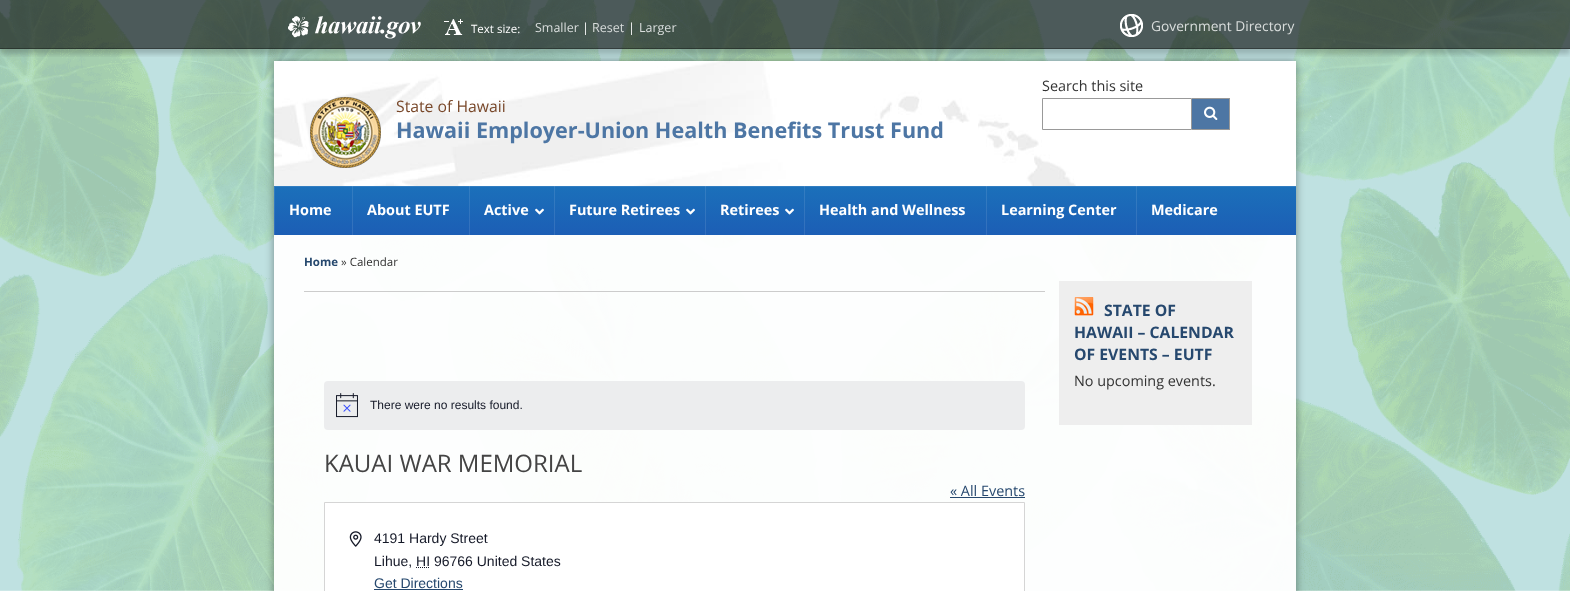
<svg xmlns="http://www.w3.org/2000/svg" width="1570" height="591">
<style>
.a{font:11.5px Open Sans;fill:#fff}
.b{font:12.5px Open Sans;fill:#d9dddc}
.c{font:12.5px Open Sans;fill:#fff}
.d{font:13.75px Open Sans;fill:#d9dddc}
.e{font:14.4px Open Sans;fill:#333}
.f{font:15.75px Open Sans;fill:#79482a}
.g{font:bold 21.6px Open Sans;fill:#4d76a4}
.h{font:bold 14.4px Open Sans;fill:#fff}
.i{font:bold 11.5px Open Sans;fill:#26486e}
.j{font:11.5px Open Sans;fill:#333}
.k{font:bold 15.75px Open Sans;fill:#26486e}
.l{font:12px Liberation Sans;fill:#141827}
.m{font:24px Open Sans;fill:#444}
.n{font:14.4px Open Sans;fill:#26486e}
.o{font:14px Liberation Sans;fill:#141827}
.p{font:14px Liberation Sans;fill:#26486e}
</style>
<defs>
<clipPath id="clip1"><path d="M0 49h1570v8H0z"/></clipPath>
<clipPath id="clip2"><path d="M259 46h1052v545h-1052zm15 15h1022v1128h-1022z" clip-rule="evenodd"/></clipPath>
<linearGradient id="g1" gradientUnits="userSpaceOnUse" x1="785" y1="186" x2="785" y2="235"><stop offset="0" stop-color="#1b70ba"/><stop offset="1" stop-color="#1c5eb5"/></linearGradient>
<clipPath id="clip3"><path d="M274 186h1022v49H274z"/></clipPath>
</defs>
<rect width="100%" height="100%" fill="#fff"/>
<image href="1.png" x="0" y="0" width="1570" height="591"/>
<g clip-path="url(#clip1)">
<path fill="#00000033" filter="blur(2.5px)" d="M0 5h1570v49H0z"/>
</g>
<g clip-path="url(#clip2)">
<path fill="#00000066" filter="blur(4.5px)" d="M274 61h1022v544H274z"/>
</g>
<path fill="#00000099" d="M0 0h1570v49H0z"/>
<path fill="#0000004d" d="M0 48h1570v1H0z"/>
<image href="2.png" x="288" y="16" width="133" height="23"/>
<image href="3.png" x="444" y="19" width="19" height="16"/>
<image href="4.png" x="1120" y="14" width="23" height="23"/>
<path fill="#fffffff5" d="M274 235h1022v356H274z"/>
<path fill="#fff" d="M1076 61h220v125H1076z"/>
<image href="5.png" x="274" y="61" width="802" height="125"/>
<path fill="none" stroke="#999" d="M1042.5 98.5h149v31H1042.5z"/>
<path fill="#4d76a4" d="M1192 99h37v30H1192z"/>
<path fill="#999" d="M1192 98h38v1H1192z"/>
<path fill="#999" d="M1229 98h1v32H1229z"/>
<path fill="#999" d="M1192 129h38v1H1192z"/>
<image href="6.png" x="1204" y="106" width="14" height="14"/>
<image href="7.png" x="310" y="97" width="71" height="71"/>
<path fill="url(#g1)" d="M274 186h1022v49H274z"/>
<g clip-path="url(#clip3)">
<path fill="#ffffff1a" fill-rule="evenodd" d="M175 87h1220v247h-1220zm100 100h1022v49h-1022z"/>
</g>
<path fill="#ffffff1a" d="M352 186h1v49H352z"/>
<path fill="#ffffff1a" d="M469 186h1v49H469z"/>
<image href="8.png" x="535" y="208" width="9" height="7"/>
<path fill="#ffffff1a" d="M554 186h1v49H554z"/>
<image href="8.png" x="686" y="208" width="9" height="7"/>
<path fill="#ffffff1a" d="M705 186h1v49H705z"/>
<image href="8.png" x="785" y="208" width="9" height="7"/>
<path fill="#ffffff1a" d="M804 186h1v49H804z"/>
<path fill="#ffffff1a" d="M986 186h1v49H986z"/>
<path fill="#ffffff1a" d="M1136 186h1v49H1136z"/>
<path fill="#eee" d="M1059 281h193v144H1059z"/>
<image href="9.png" x="1074" y="297" width="20" height="19"/>
<path fill="#ccc" d="M304 291h741v1H304z"/>
<rect fill="#ecedee" x="324" y="381" width="701" height="49" rx="4"/>
<image href="10.png" x="336" y="393" width="22" height="25"/>
<path fill="#26486e" d="M950 497h75v1H950z"/>
<path fill="#fff" stroke="#d5d5d5" d="M324.5 502.5h700v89H324.5z"/>
<image href="11.png" x="349" y="531" width="13" height="16"/>
<path fill="none" stroke="#141827" stroke-dasharray="1 1" d="M416 567.5h14"/>
<path fill="#26486e" d="M374 589h89v1H374z"/>
<text class="a" x="471" y="33">Text size:</text>
<text class="b" x="535" y="32">Smaller</text>
<text class="c" x="582" y="32">|</text>
<text class="b" x="592" y="32">Reset</text>
<text class="c" x="628" y="32">|</text>
<text class="b" x="639" y="32">Larger</text>
<text class="d" x="1151" y="31">Government Directory</text>
<text class="e" x="1042" y="91">Search this site</text>
<text class="f" x="396" y="112">State of Hawaii</text>
<text class="g" x="396" y="138">Hawaii Employer-Union Health Benefits Trust Fund</text>
<text class="h" x="289" y="215">Home</text>
<text class="h" x="367" y="215">About EUTF</text>
<text class="h" x="484" y="215">Active</text>
<text class="h" x="569" y="215">Future Retirees</text>
<text class="h" x="720" y="215">Retirees</text>
<text class="h" x="819" y="215">Health and Wellness</text>
<text class="h" x="1001" y="215">Learning Center</text>
<text class="h" x="1151" y="215">Medicare</text>
<text class="i" x="304" y="266">Home</text>
<text class="j" x="341" y="266">» Calendar</text>
<text class="k" x="1104" y="316">STATE OF</text>
<text class="k" x="1074" y="338">HAWAII – CALENDAR</text>
<text class="k" x="1074" y="360">OF EVENTS – EUTF</text>
<text class="e" x="1074" y="386">No upcoming events.</text>
<text class="l" x="370" y="409">There were no results found.</text>
<text class="m" x="324" y="472">KAUAI WAR MEMORIAL</text>
<text class="n" x="950" y="496">« All Events</text>
<text class="o" x="374" y="543">4191 Hardy Street</text>
<text class="o" x="374" y="566">Lihue, HI 96766 United States</text>
<text class="p" x="374" y="588">Get Directions</text>
</svg>
